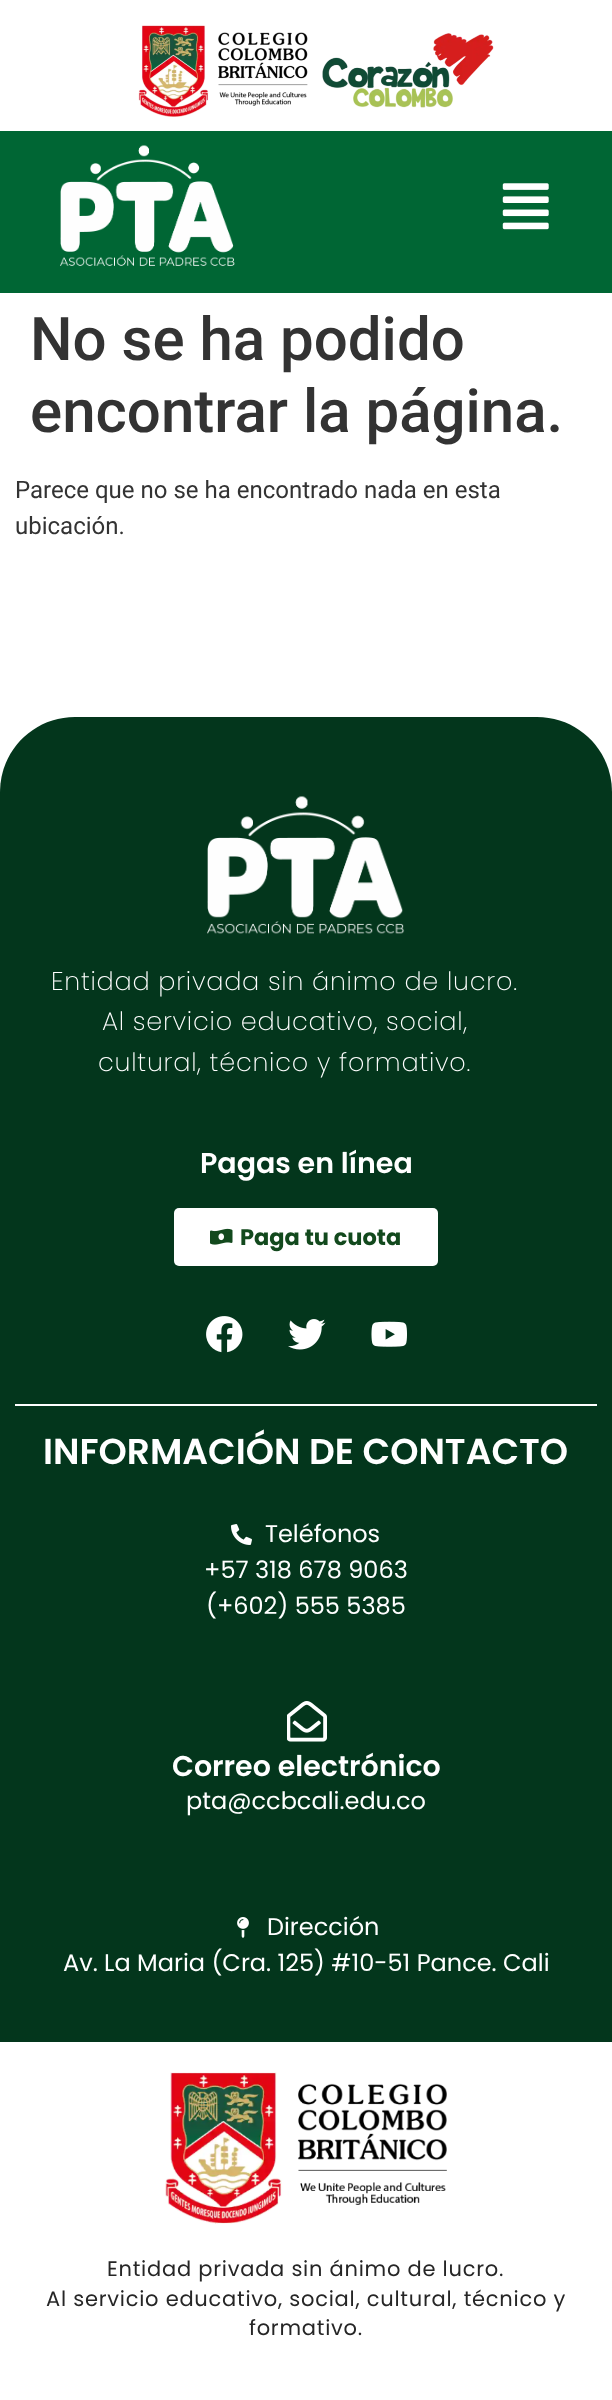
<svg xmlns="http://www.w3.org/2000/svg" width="612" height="2400">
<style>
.a{font:500 60px Roboto;fill:#333}
.b{font:24px Roboto;fill:#333}
.c{font:200 25.5px Poppins;letter-spacing:0.75px;fill:#fff}
.d{font:600 28.5px Poppins;fill:#fff}
.e{font:bold 22.5px Poppins;fill:#12491d}
.f{font:600 36px Poppins;fill:#fff}
.g{font:24px Poppins;fill:#fff}
.h{font:21px Poppins;letter-spacing:0.75px;fill:#262626}
</style>
<rect width="100%" height="100%" fill="#fff"/>
<image href="1.png" x="138" y="25" width="356" height="92"/>
<path fill="#006634" d="M0 131h612v162H0z"/>
<image href="2.png" x="60" y="145" width="175" height="121"/>
<image href="3.png" x="502" y="183" width="47" height="47"/>
<path fill="#03361c" d="M75 717h462c41.5 0 75 33.5 75 75v599h-612v-599c0-41.5 33.5-75 75-75z"/>
<image href="4.png" x="207" y="796" width="198" height="138"/>
<rect fill="#fff" x="174" y="1208" width="264" height="58" rx="5"/>
<image href="5.png" x="210" y="1228" width="23" height="17"/>
<image href="6.png" x="206" y="1316" width="37" height="37"/>
<image href="7.png" x="288" y="1319" width="38" height="31"/>
<image href="8.png" x="371" y="1321" width="36" height="26"/>
<path fill="#03361c" d="M0 1391h612v651H0z"/>
<path fill="#fff" d="M15 1404h582v2H15z"/>
<image href="9.png" x="231" y="1524" width="21" height="21"/>
<image href="10.png" x="287" y="1701" width="40" height="41"/>
<image href="11.png" x="237" y="1917" width="12" height="21"/>
<image href="12.png" x="165" y="2072" width="282" height="152"/>
<text class="a" x="30" y="360">No se ha podido</text>
<text class="a" x="30" y="432">encontrar la página.</text>
<text class="b" x="15" y="498">Parece que no se ha encontrado nada en esta</text>
<text class="b" x="15" y="534">ubicación.</text>
<text class="c" x="51" y="990">Entidad privada sin ánimo de lucro.</text>
<text class="c" x="102" y="1030">Al servicio educativo, social,</text>
<text class="c" x="98" y="1071">cultural, técnico y formativo.</text>
<text class="d" x="200" y="1173">Pagas en línea</text>
<text class="e" x="240" y="1245">Paga tu cuota</text>
<text class="f" x="43" y="1464">INFORMACIÓN DE CONTACTO</text>
<text class="g" x="265" y="1542">Teléfonos</text>
<text class="g" x="204" y="1578">+57 318 678 9063</text>
<text class="g" x="206" y="1614">(+602) 555 5385</text>
<text class="d" x="172" y="1776">Correo electrónico</text>
<text class="g" x="186" y="1809">pta@ccbcali.edu.co</text>
<text class="g" x="267" y="1935">Dirección</text>
<text class="g" x="63" y="1971">Av. La Maria (Cra. 125) #10-51 Pance. Cali</text>
<text class="h" x="107" y="2276">Entidad privada sin ánimo de lucro.</text>
<text class="h" x="46" y="2306">Al servicio educativo, social, cultural, técnico y</text>
<text class="h" x="249" y="2335">formativo.</text>
</svg>
